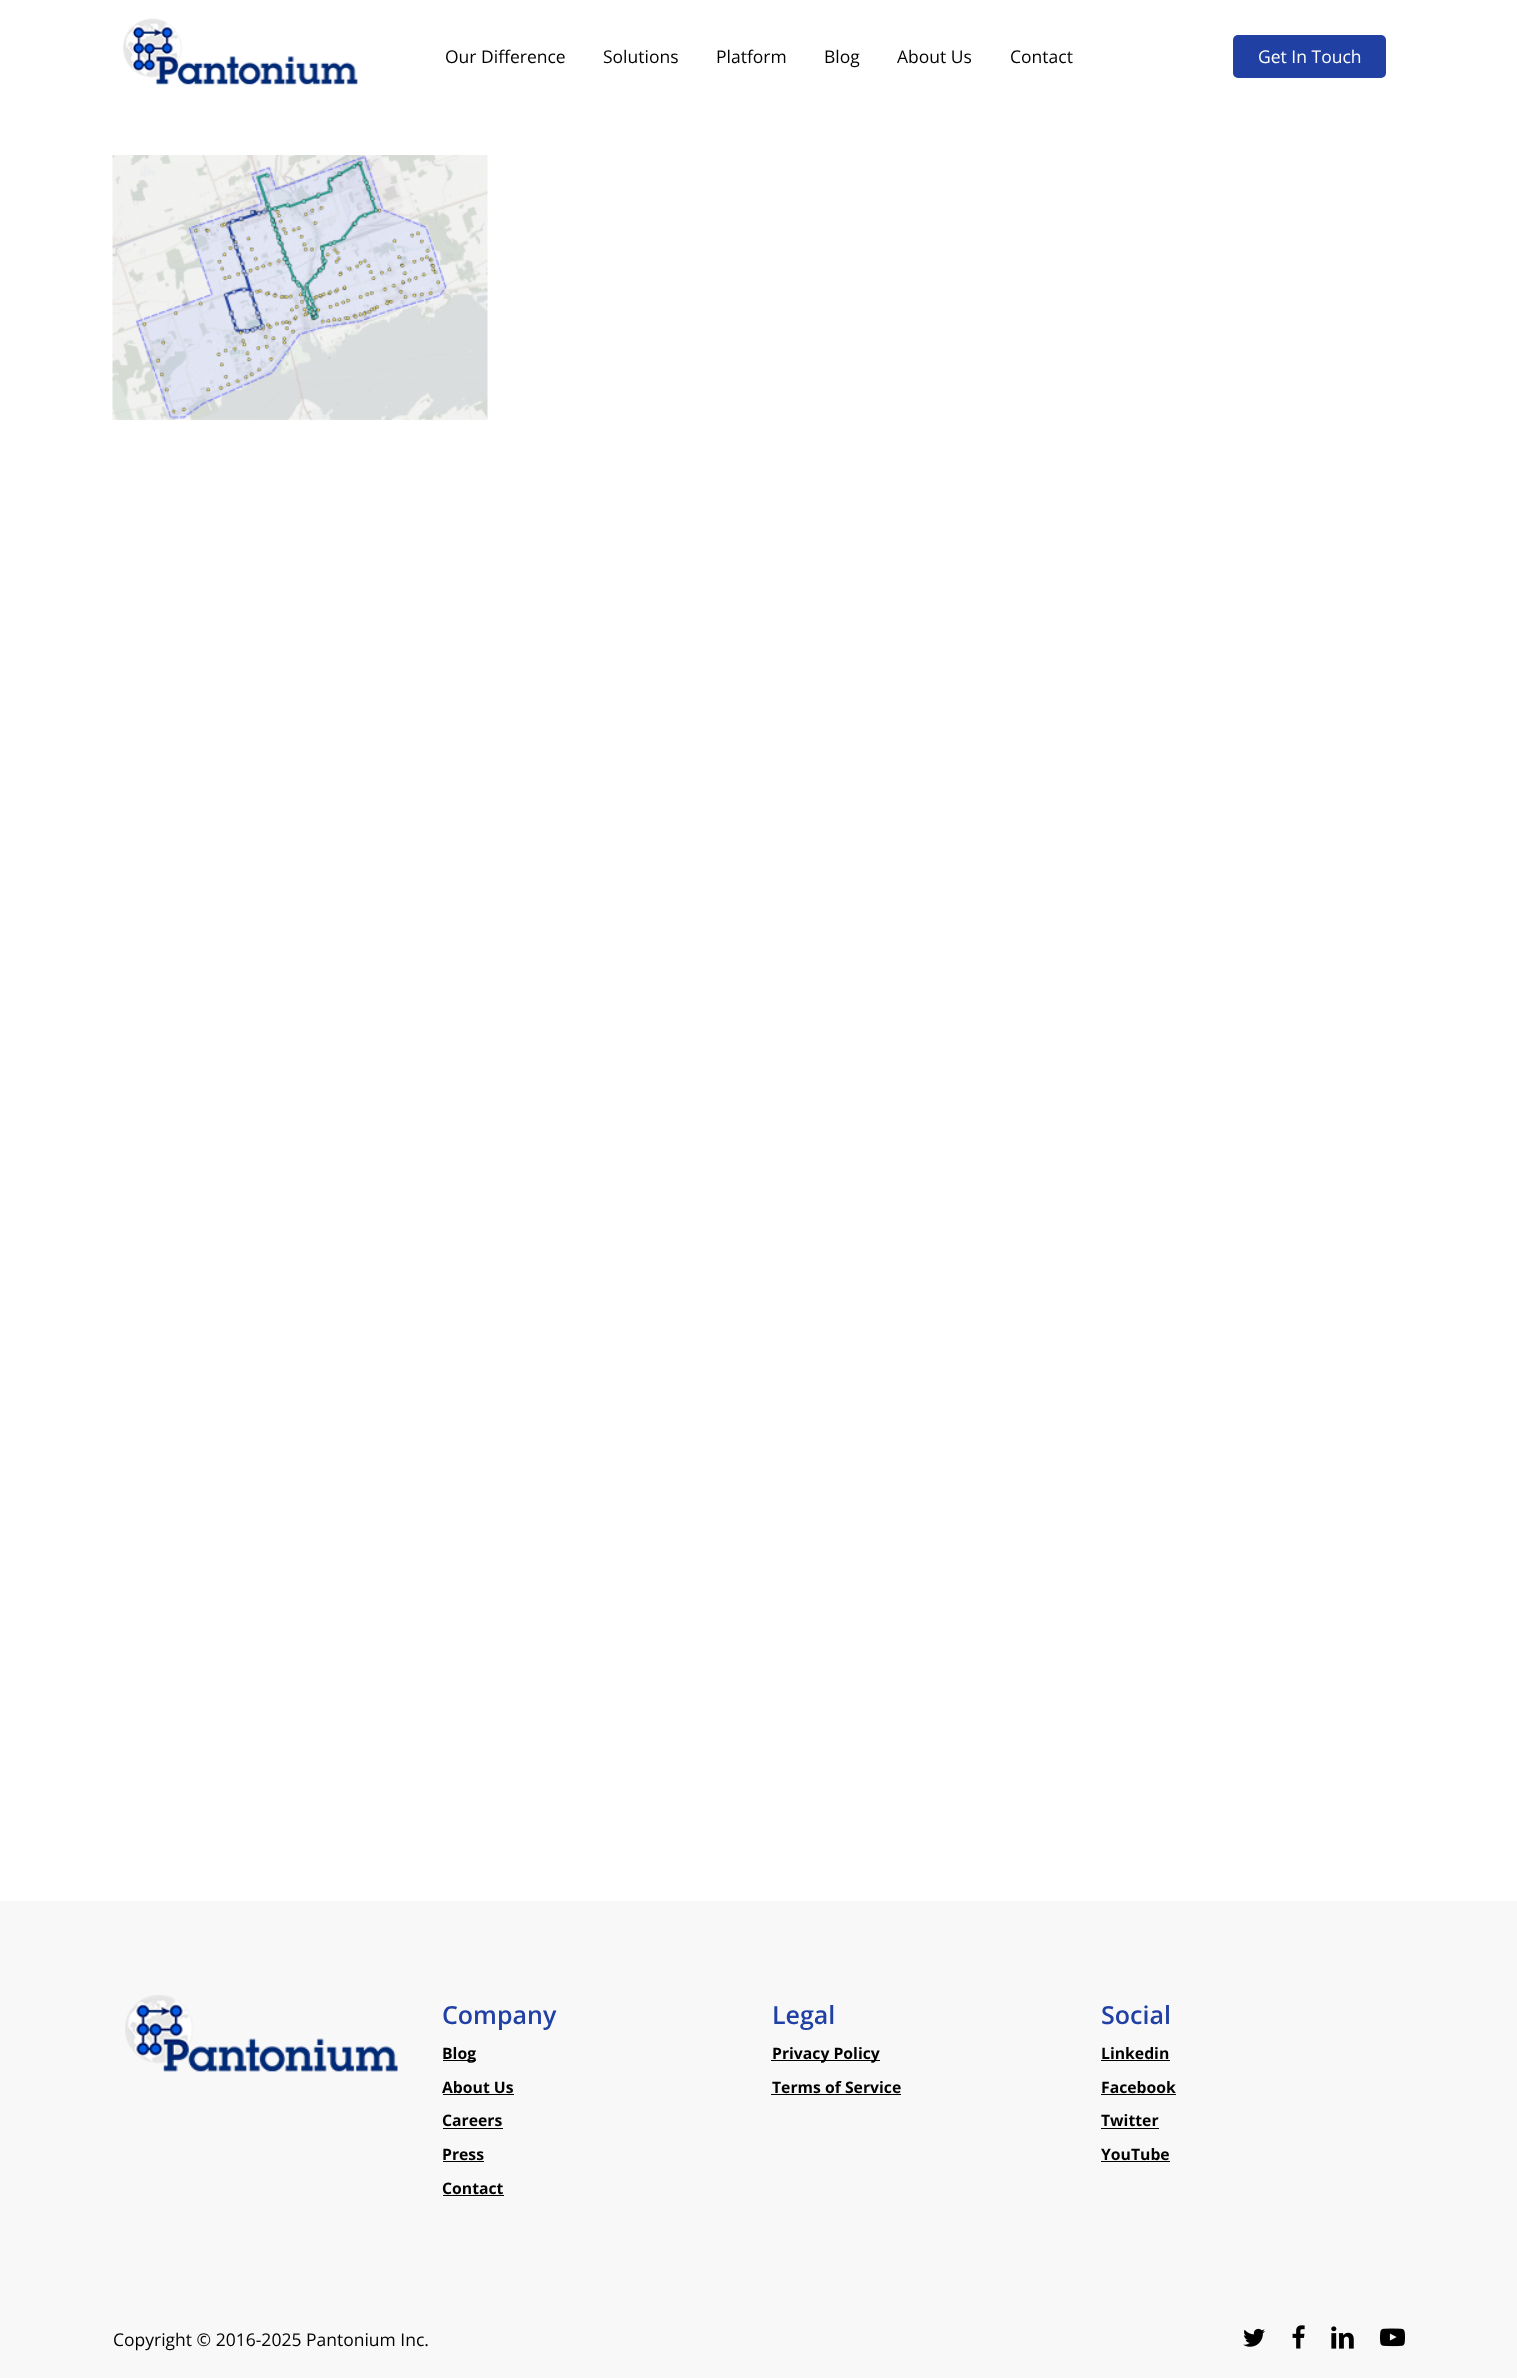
<svg xmlns="http://www.w3.org/2000/svg" width="1517" height="2378">
<style>
.a{font:17.5px Open Sans;fill:#000}
.b{font:17.5px Open Sans;fill:#fff}
.c{font:600 25px Open Sans;fill:#2041a3}
.d{font:bold 15.75px Open Sans;fill:#000}
</style>
<rect width="100%" height="100%" fill="#fff"/>
<image href="1.png" x="123" y="18" width="235" height="67"/>
<rect fill="#2041a3" x="1233" y="35" width="153" height="43" rx="5"/>
<image href="2.png" x="112" y="155" width="376" height="265"/>
<path fill="#f8f8f8" d="M0 1901h1517v477H0z"/>
<image href="3.png" x="125" y="1995" width="273" height="77"/>
<path fill="#000" d="M443 2060h33v1H443z"/>
<path fill="#000" d="M443 2094h71v1H443z"/>
<path fill="#000" d="M443 2128h60v1H443z"/>
<path fill="#000" d="M443 2161h41v1H443z"/>
<path fill="#000" d="M443 2195h61v1H443z"/>
<path fill="#000" d="M771 2060h109v1H771z"/>
<path fill="#000" d="M771 2094h130v1H771z"/>
<path fill="#000" d="M1101 2060h69v1H1101z"/>
<path fill="#000" d="M1101 2094h75v1H1101z"/>
<path fill="#000" d="M1101 2128h58v1H1101z"/>
<path fill="#000" d="M1101 2161h69v1H1101z"/>
<image href="4.png" x="1243" y="2328" width="22" height="19"/>
<image href="5.png" x="1292" y="2325" width="13" height="24"/>
<image href="6.png" x="1331" y="2326" width="23" height="23"/>
<image href="7.png" x="1380" y="2328" width="25" height="19"/>
<text class="a" x="445" y="63">Our Difference</text>
<text class="a" x="603" y="63">Solutions</text>
<text class="a" x="716" y="63">Platform</text>
<text class="a" x="824" y="63">Blog</text>
<text class="a" x="897" y="63">About Us</text>
<text class="a" x="1010" y="63">Contact</text>
<text class="b" x="1258" y="63">Get In Touch</text>
<text class="c" x="442" y="2024">Company</text>
<text class="d" x="442" y="2059">Blog</text>
<text class="d" x="442" y="2093">About Us</text>
<text class="d" x="442" y="2126">Careers</text>
<text class="d" x="442" y="2160">Press</text>
<text class="d" x="442" y="2194">Contact</text>
<text class="c" x="772" y="2024">Legal</text>
<text class="d" x="772" y="2059">Privacy Policy</text>
<text class="d" x="772" y="2093">Terms of Service</text>
<text class="c" x="1101" y="2024">Social</text>
<text class="d" x="1101" y="2059">Linkedin</text>
<text class="d" x="1101" y="2093">Facebook</text>
<text class="d" x="1101" y="2126">Twitter</text>
<text class="d" x="1101" y="2160">YouTube</text>
<text class="a" x="113" y="2346">Copyright © 2016-2025 Pantonium Inc.</text>
</svg>
